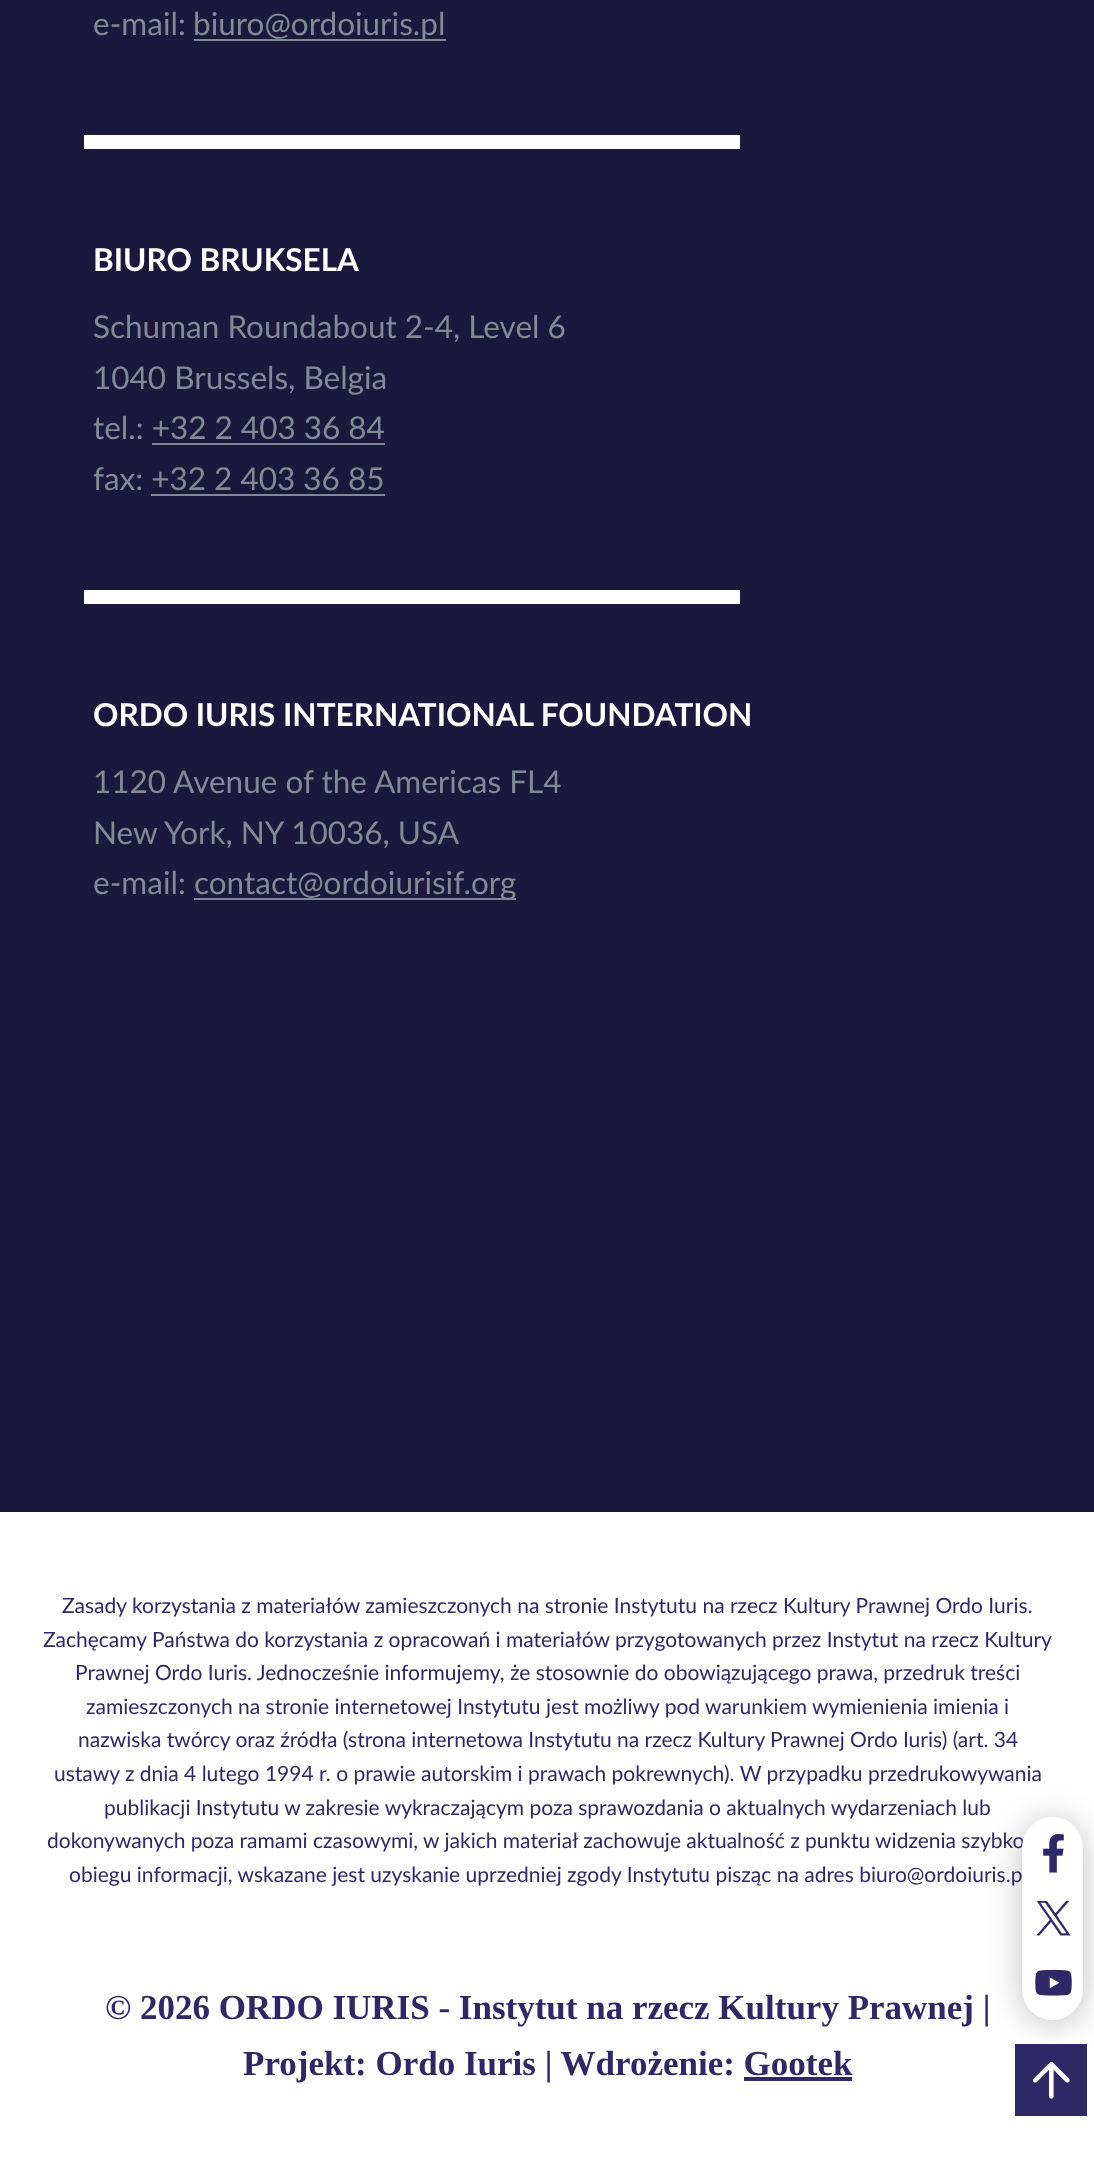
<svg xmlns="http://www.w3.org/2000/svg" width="1094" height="2159">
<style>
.a{font:31.5px Lato;fill:#828996}
.b{font:bold 31.5px Lato;fill:#fff}
.c{font:21px Lato;fill:#2e2966}
.d{font:bold 35px Liberation Serif;fill:#2e2966}
</style>
<rect width="100%" height="100%" fill="#fff"/>
<path fill="#1b183e" d="M0 0h1094v1512H0z"/>
<path fill="#828996" d="M194 39h252v2H194z"/>
<path fill="#fff" d="M84 135h656v14H84z"/>
<path fill="#828996" d="M152 443h233v2H152z"/>
<path fill="#828996" d="M151 494h234v2H151z"/>
<path fill="#fff" d="M84 590h656v14H84z"/>
<path fill="#828996" d="M194 898h322v2H194z"/>
<path fill="#2e2966" d="M744 2077h108v4H744z"/>
<rect fill="#00000040" filter="blur(16px)" x="1022" y="1820" width="61" height="203" rx="30.5"/>
<path fill="#2e2966" d="M1015 2044h72v72H1015z"/>
<image href="4.png" x="1032" y="2062" width="38" height="37"/>
<text class="a" x="93" y="35">e-mail:</text>
<text class="a" x="193" y="35">biuro@ordoiuris.pl</text>
<text class="b" x="93" y="271">BIURO BRUKSELA</text>
<text class="a" x="93" y="338">Schuman Roundabout 2-4, Level 6</text>
<text class="a" x="93" y="389">1040 Brussels, Belgia</text>
<text class="a" x="93" y="439">tel.: +32 2 403 36 84</text>
<text class="a" x="93" y="490">fax: +32 2 403 36 85</text>
<text class="b" x="93" y="726">ORDO IURIS INTERNATIONAL FOUNDATION</text>
<text class="a" x="93" y="793">1120 Avenue of the Americas FL4</text>
<text class="a" x="93" y="844">New York, NY 10036, USA</text>
<text class="a" x="93" y="894">e-mail:</text>
<text class="a" x="194" y="894">contact@ordoiurisif.org</text>
<text class="c" x="62" y="1613">Zasady korzystania z materiałów zamieszczonych na stronie Instytutu na rzecz Kultury Prawnej Ordo Iuris.</text>
<text class="c" x="43" y="1647">Zachęcamy Państwa do korzystania z opracowań i materiałów przygotowanych przez Instytut na rzecz Kultury</text>
<text class="c" x="75" y="1680">Prawnej Ordo Iuris. Jednocześnie informujemy, że stosownie do obowiązującego prawa, przedruk treści</text>
<text class="c" x="86" y="1714">zamieszczonych na stronie internetowej Instytutu jest możliwy pod warunkiem wymienienia imienia i</text>
<text class="c" x="78" y="1747">nazwiska twórcy oraz źródła (strona internetowa Instytutu na rzecz Kultury Prawnej Ordo Iuris) (art. 34</text>
<text class="c" x="54" y="1781">ustawy z dnia 4 lutego 1994 r. o prawie autorskim i prawach pokrewnych). W przypadku przedrukowywania</text>
<text class="c" x="104" y="1815">publikacji Instytutu w zakresie wykraczającym poza sprawozdania o aktualnych wydarzeniach lub</text>
<text class="c" x="47" y="1848">dokonywanych poza ramami czasowymi, w jakich materiał zachowuje aktualność z punktu widzenia szybko</text>
<text class="c" x="69" y="1882">obiegu informacji, wskazane jest uzyskanie uprzedniej zgody Instytutu pisząc na adres biuro@ordoiuris.p</text>
<text class="d" x="105" y="2019">© 2026 ORDO IURIS - Instytut na rzecz Kultury Prawnej |</text>
<text class="d" x="243" y="2075">Projekt: Ordo Iuris | Wdrożenie: Gootek</text>
<rect fill="#fff" x="1022" y="1817" width="61" height="203" rx="30.5"/>
<image href="1.png" x="1043" y="1834" width="21" height="39"/>
<image href="2.png" x="1036" y="1901" width="35" height="35"/>
<image href="3.png" x="1035" y="1969" width="37" height="27"/>
</svg>
